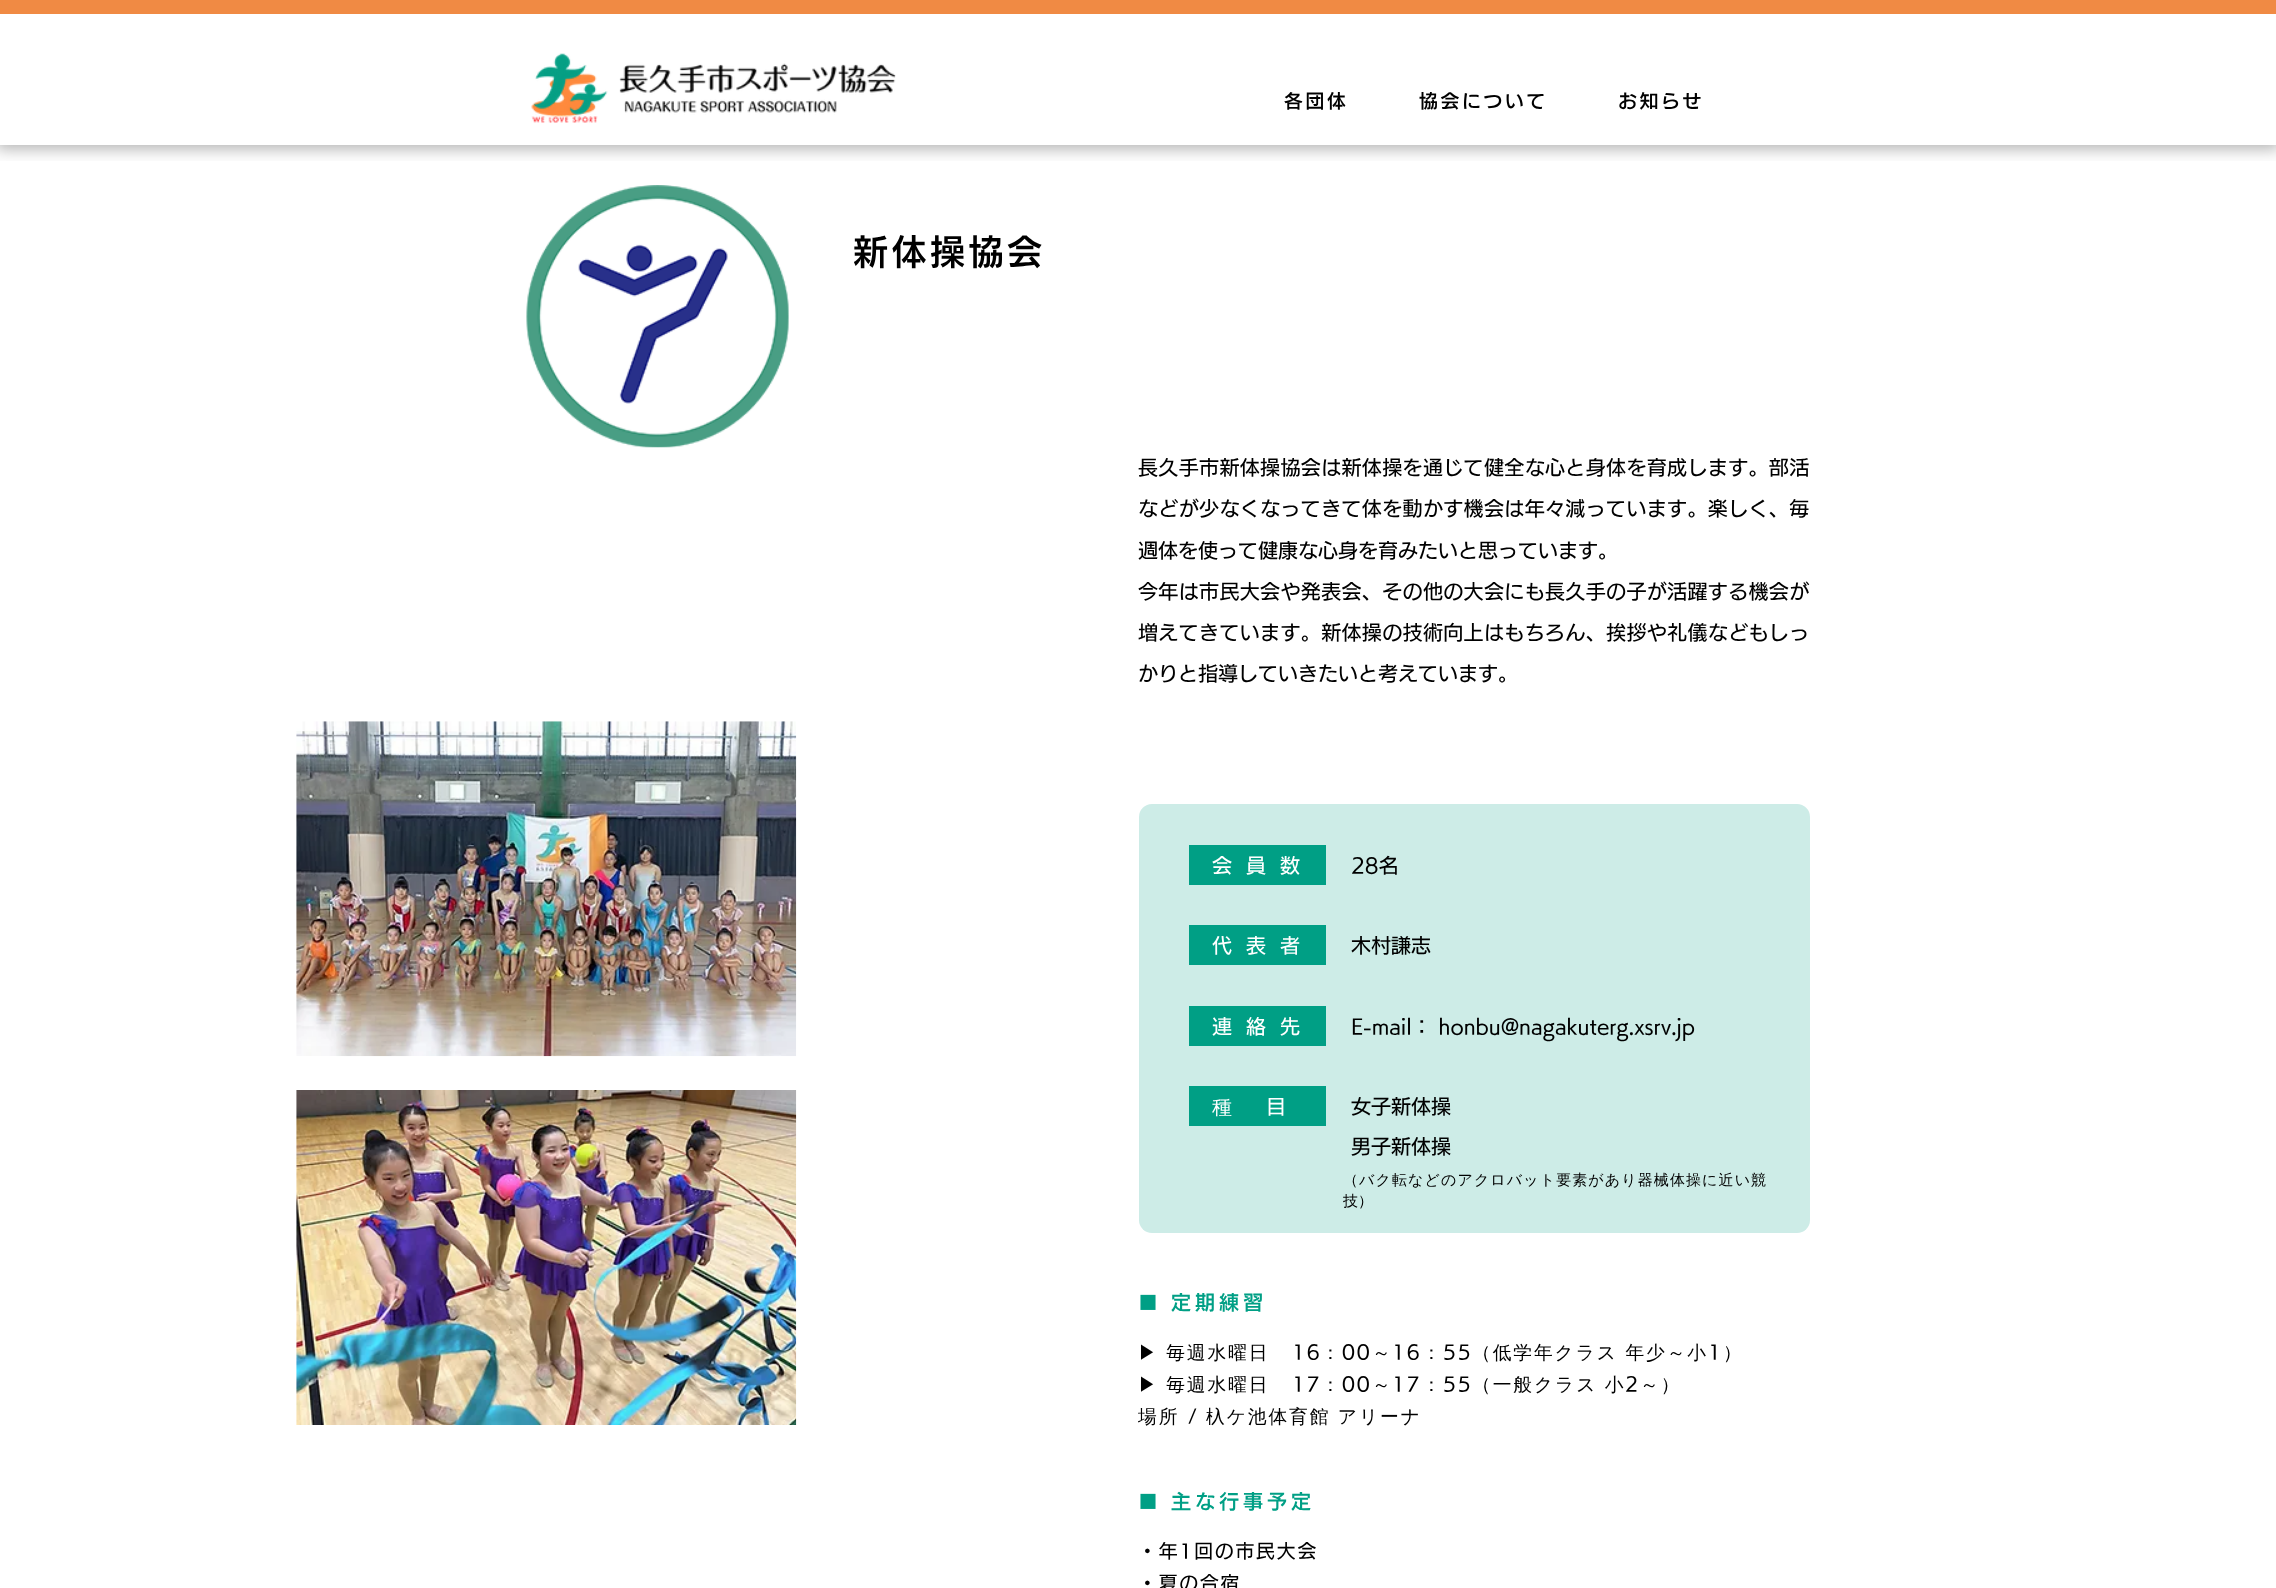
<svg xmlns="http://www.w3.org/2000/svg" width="2276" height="1588">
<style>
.a{font:600 18.75px 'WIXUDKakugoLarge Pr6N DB';letter-spacing:2.75px;fill:#000}
.b{font:600 35px 'WIXUDKakugoLarge Pr6N DB';letter-spacing:3.5px;fill:#000}
.c{font:500 20px 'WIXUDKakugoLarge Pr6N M';letter-spacing:0.35px;fill:#000}
.d{font:500 20px 'WIXUDKakugoLarge Pr6N M';fill:#000}
.e{font:500 20px 'WIXUDKakugoLarge Pr6N M';letter-spacing:14px;fill:#fff}
.f{font:500 20px WenQuanYi Zen Hei;letter-spacing:14px;fill:#fff}
.g{font:500 15px WenQuanYi Zen Hei;letter-spacing:1.1px;fill:#000}
.h{font:500 15px WenQuanYi Zen Hei;fill:#000}
.i{font:600 20px 'WIXUDKakugoLarge Pr6N DB';letter-spacing:4px;fill:#009f85}
.j{font:500 18.75px WenQuanYi Zen Hei;letter-spacing:1.9px;fill:#000}
.k{font:500 18.75px 'WIXUDKakugoLarge Pr6N M';letter-spacing:1.9px;fill:#000}
</style>
<defs>
<clipPath id="clip1"><path d="M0 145h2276v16H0z"/></clipPath>
</defs>
<rect width="100%" height="100%" fill="#fff"/>
<g clip-path="url(#clip1)">
<path fill="#0000004d" filter="blur(8px)" d="M-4 -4h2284v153H-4z"/>
</g>
<path fill="#f08a44" d="M0 0h2276v14H0z"/>
<image href="1.png" x="531" y="53" width="365" height="70"/>
<image href="2.png" x="526" y="185" width="263" height="263"/>
<image href="3.png" x="296" y="721" width="501" height="336"/>
<image href="4.png" x="296" y="1090" width="501" height="335"/>
<rect fill="#cdece7" x="1139" y="804" width="671" height="429" rx="13"/>
<path fill="#009f85" d="M1189 845h137v40H1189z"/>
<path fill="#009f85" d="M1189 925h137v40H1189z"/>
<path fill="#009f85" d="M1189 1006h137v40H1189z"/>
<path fill="#009f85" d="M1189 1086h137v40H1189z"/>
<text class="a" x="1284" y="108">各団体</text>
<text class="a" x="1419" y="108">協会について</text>
<text class="a" x="1618" y="108">お知らせ</text>
<text class="b" x="853" y="265">新体操協会</text>
<text class="c" x="1138" y="475">長久手市新体操協会は新体操を通じて健全な心と身体を育成します。部活</text>
<text class="c" x="1138" y="516">などが少なくなってきて体を動かす機会は年々減っています。楽しく、毎</text>
<text class="d" x="1138" y="558">週体を使って健康な心身を育みたいと思っています。</text>
<text class="c" x="1138" y="599">今年は市民大会や発表会、その他の大会にも長久手の子が活躍する機会が</text>
<text class="c" x="1138" y="640">増えてきています。新体操の技術向上はもちろん、挨拶や礼儀などもしっ</text>
<text class="d" x="1138" y="681">かりと指導していきたいと考えています。</text>
<text class="e" x="1212" y="873">会員数</text>
<text class="d" x="1351" y="873">28名</text>
<text class="e" x="1212" y="953">代表者</text>
<text class="d" x="1351" y="953">木村謙志</text>
<text class="e" x="1212" y="1034">連絡先</text>
<text class="d" x="1351" y="1034">E-mail： honbu@nagakuterg.xsrv.jp</text>
<text class="f" x="1212" y="1114">種</text>
<text class="e" x="1266" y="1114">目</text>
<text class="d" x="1351" y="1114">女子新体操</text>
<text class="d" x="1351" y="1154">男子新体操</text>
<text class="g" x="1343" y="1185">（バク転などのアクロバット要素があり器械体操に近い競</text>
<text class="h" x="1343" y="1206">技）</text>
<text class="i" x="1138" y="1310">■ 定期練習</text>
<text class="j" x="1138" y="1359">▶︎ 毎週水曜日</text>
<text class="k" x="1292" y="1359">16</text>
<text class="j" x="1321" y="1359">：</text>
<text class="k" x="1342" y="1359">00</text>
<text class="j" x="1372" y="1359">～</text>
<text class="k" x="1392" y="1359">16</text>
<text class="j" x="1422" y="1359">：</text>
<text class="k" x="1443" y="1359">55</text>
<text class="j" x="1472" y="1359">（低学年クラス 年少～小</text>
<text class="k" x="1708" y="1359">1</text>
<text class="j" x="1723" y="1359">）</text>
<text class="j" x="1138" y="1391">▶︎ 毎週水曜日</text>
<text class="k" x="1292" y="1391">17</text>
<text class="j" x="1321" y="1391">：</text>
<text class="k" x="1342" y="1391">00</text>
<text class="j" x="1372" y="1391">～</text>
<text class="k" x="1392" y="1391">17</text>
<text class="j" x="1422" y="1391">：</text>
<text class="k" x="1443" y="1391">55</text>
<text class="j" x="1472" y="1391">（一般クラス 小</text>
<text class="k" x="1625" y="1391">2</text>
<text class="j" x="1640" y="1391">～）</text>
<text class="j" x="1138" y="1423">場所</text>
<text class="k" x="1188" y="1423">/</text>
<text class="j" x="1206" y="1423">杁ケ池体育館 アリーナ</text>
<text class="i" x="1138" y="1509">■ 主な行事予定</text>
<text class="k" x="1138" y="1558">・年1回の市民大会</text>
<text class="k" x="1138" y="1590">・夏の合宿</text>
</svg>
